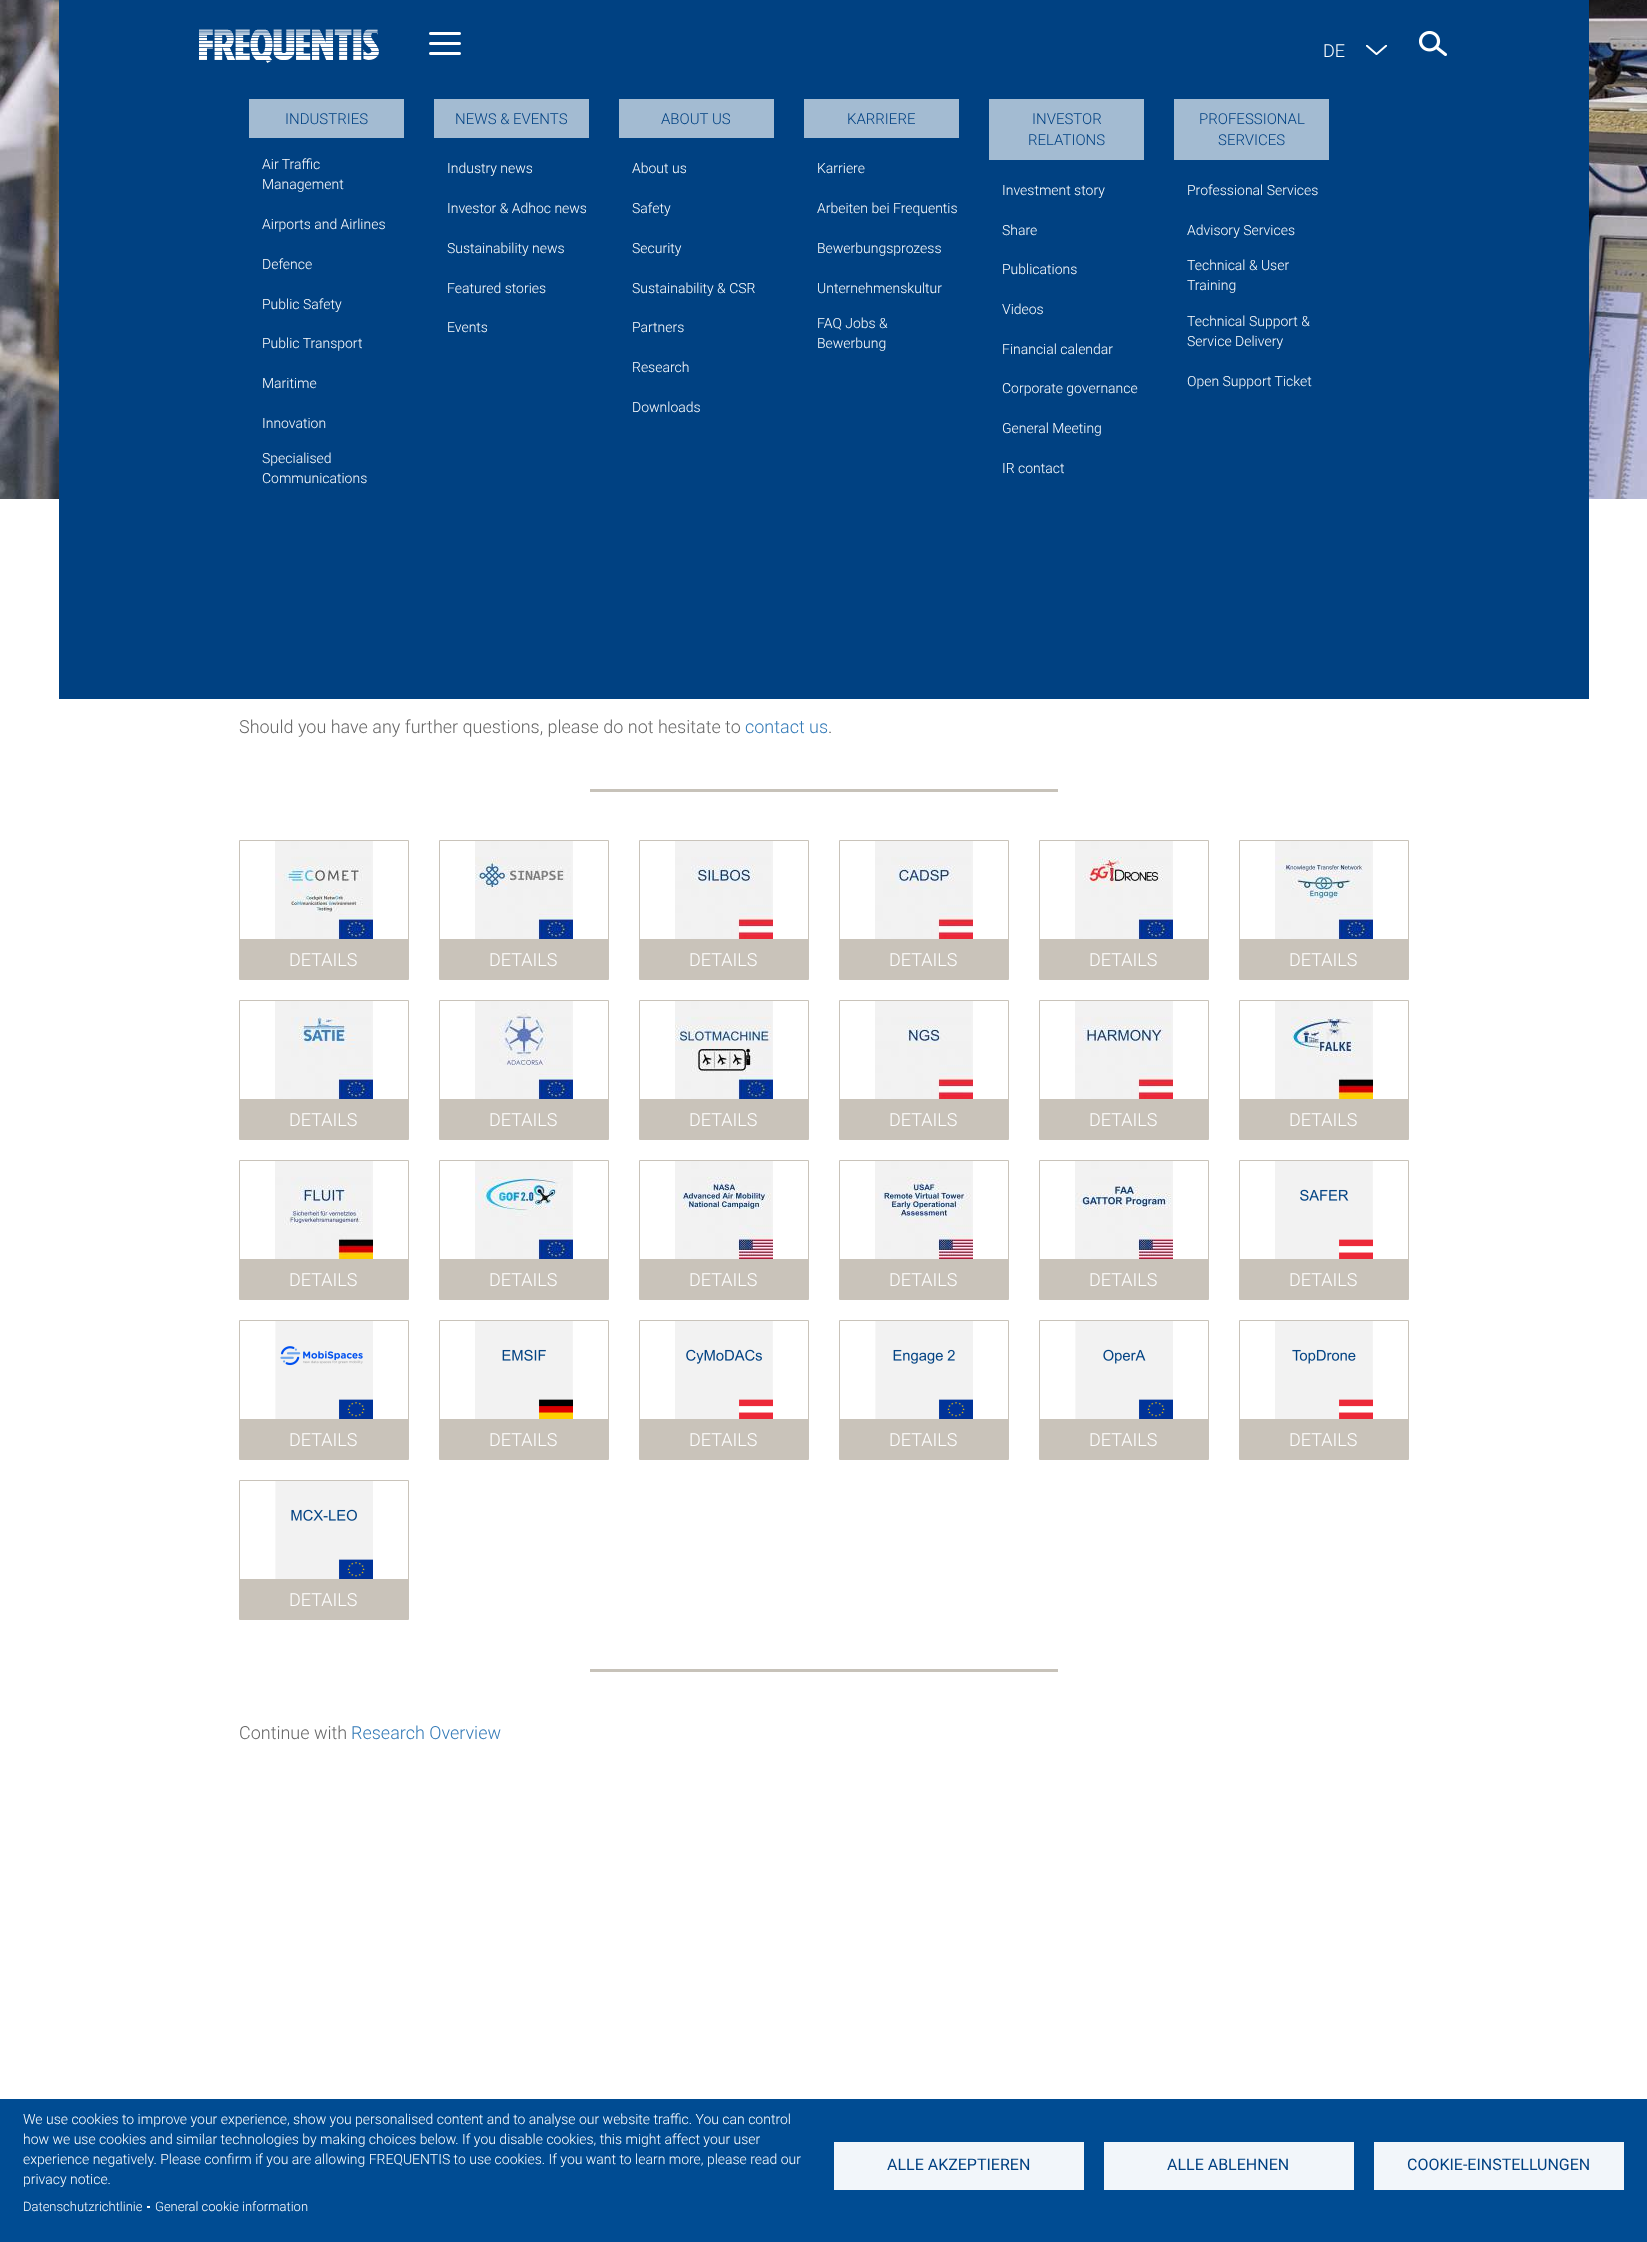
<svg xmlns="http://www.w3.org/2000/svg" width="1647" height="2242">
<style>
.a{font:300 18px Roboto;fill:#fff}
.b{font:300 14px Roboto;fill:#fff}
.c{font:300 13px Roboto;fill:#fff}
.d{font:16px Roboto;fill:#004182}
.e{font:300 15px Roboto;fill:#004182}
.f{font:300 18px Roboto;fill:#666}
.g{font:300 18px Roboto;fill:#337ab7}
</style>
<rect width="100%" height="100%" fill="#fff"/>
<image href="5.png" x="0" y="0" width="1647" height="499"/>
<path fill="#004182" d="M59 0h1530v699H59z"/>
<image href="1.png" x="199" y="29" width="180" height="34"/>
<image href="2.png" x="429" y="32" width="32" height="23"/>
<image href="3.png" x="1419" y="31" width="28" height="25"/>
<image href="4.png" x="1366" y="45" width="21" height="10"/>
<path fill="#004c93" d="M0 2099h1647v143H0z"/>
<path fill="#fff" d="M147 2206h3v2H147z"/>
<path fill="#f2f6fa" d="M834 2142h250v48H834z"/>
<path fill="#f2f6fa" d="M1104 2142h250v48H1104z"/>
<path fill="#f2f6fa" d="M1374 2142h250v48H1374z"/>
<path fill="#a3bbd2" d="M249 99h155v39H249z"/>
<path fill="#a3bbd2" d="M434 99h155v39H434z"/>
<path fill="#a3bbd2" d="M619 99h155v39H619z"/>
<path fill="#a3bbd2" d="M804 99h155v39H804z"/>
<path fill="#a3bbd2" d="M989 99h155v61H989z"/>
<path fill="#a3bbd2" d="M1174 99h155v61H1174z"/>
<path fill="#c7c2b9" d="M590 789h468v3H590z"/>
<path fill="none" stroke="#c9c3ba" d="M239.5 840.5h169v139H239.5z"/>
<image href="6.png" x="275" y="841" width="98" height="98"/>
<path fill="#c9c3ba" d="M240 939h168v40H240z"/>
<path fill="none" stroke="#c9c3ba" d="M439.5 840.5h169v139H439.5z"/>
<image href="7.png" x="475" y="841" width="98" height="98"/>
<path fill="#c9c3ba" d="M440 939h168v40H440z"/>
<path fill="none" stroke="#c9c3ba" d="M639.5 840.5h169v139H639.5z"/>
<image href="8.png" x="675" y="841" width="98" height="98"/>
<path fill="#c9c3ba" d="M640 939h168v40H640z"/>
<path fill="none" stroke="#c9c3ba" d="M839.5 840.5h169v139H839.5z"/>
<image href="9.png" x="875" y="841" width="98" height="98"/>
<path fill="#c9c3ba" d="M840 939h168v40H840z"/>
<path fill="none" stroke="#c9c3ba" d="M1039.5 840.5h169v139H1039.5z"/>
<image href="10.png" x="1075" y="841" width="98" height="98"/>
<path fill="#c9c3ba" d="M1040 939h168v40H1040z"/>
<path fill="none" stroke="#c9c3ba" d="M1239.5 840.5h169v139H1239.5z"/>
<image href="11.png" x="1275" y="841" width="98" height="98"/>
<path fill="#c9c3ba" d="M1240 939h168v40H1240z"/>
<path fill="none" stroke="#c9c3ba" d="M239.5 1000.5h169v139H239.5z"/>
<image href="12.png" x="275" y="1001" width="98" height="98"/>
<path fill="#c9c3ba" d="M240 1099h168v40H240z"/>
<path fill="none" stroke="#c9c3ba" d="M439.5 1000.5h169v139H439.5z"/>
<image href="13.png" x="475" y="1001" width="98" height="98"/>
<path fill="#c9c3ba" d="M440 1099h168v40H440z"/>
<path fill="none" stroke="#c9c3ba" d="M639.5 1000.5h169v139H639.5z"/>
<image href="14.png" x="675" y="1001" width="98" height="98"/>
<path fill="#c9c3ba" d="M640 1099h168v40H640z"/>
<path fill="none" stroke="#c9c3ba" d="M839.5 1000.5h169v139H839.5z"/>
<image href="15.png" x="875" y="1001" width="98" height="98"/>
<path fill="#c9c3ba" d="M840 1099h168v40H840z"/>
<path fill="none" stroke="#c9c3ba" d="M1039.5 1000.5h169v139H1039.5z"/>
<image href="16.png" x="1075" y="1001" width="98" height="98"/>
<path fill="#c9c3ba" d="M1040 1099h168v40H1040z"/>
<path fill="none" stroke="#c9c3ba" d="M1239.5 1000.5h169v139H1239.5z"/>
<image href="17.png" x="1275" y="1001" width="98" height="98"/>
<path fill="#c9c3ba" d="M1240 1099h168v40H1240z"/>
<path fill="none" stroke="#c9c3ba" d="M239.5 1160.5h169v139H239.5z"/>
<image href="18.png" x="275" y="1161" width="98" height="98"/>
<path fill="#c9c3ba" d="M240 1259h168v40H240z"/>
<path fill="none" stroke="#c9c3ba" d="M439.5 1160.5h169v139H439.5z"/>
<image href="19.png" x="475" y="1161" width="98" height="98"/>
<path fill="#c9c3ba" d="M440 1259h168v40H440z"/>
<path fill="none" stroke="#c9c3ba" d="M639.5 1160.5h169v139H639.5z"/>
<image href="20.png" x="675" y="1161" width="98" height="98"/>
<path fill="#c9c3ba" d="M640 1259h168v40H640z"/>
<path fill="none" stroke="#c9c3ba" d="M839.5 1160.5h169v139H839.5z"/>
<image href="21.png" x="875" y="1161" width="98" height="98"/>
<path fill="#c9c3ba" d="M840 1259h168v40H840z"/>
<path fill="none" stroke="#c9c3ba" d="M1039.5 1160.5h169v139H1039.5z"/>
<image href="22.png" x="1075" y="1161" width="98" height="98"/>
<path fill="#c9c3ba" d="M1040 1259h168v40H1040z"/>
<path fill="none" stroke="#c9c3ba" d="M1239.5 1160.5h169v139H1239.5z"/>
<image href="23.png" x="1275" y="1161" width="98" height="98"/>
<path fill="#c9c3ba" d="M1240 1259h168v40H1240z"/>
<path fill="none" stroke="#c9c3ba" d="M239.5 1320.5h169v139H239.5z"/>
<image href="24.png" x="275" y="1321" width="98" height="98"/>
<path fill="#c9c3ba" d="M240 1419h168v40H240z"/>
<path fill="none" stroke="#c9c3ba" d="M439.5 1320.5h169v139H439.5z"/>
<image href="25.png" x="475" y="1321" width="98" height="98"/>
<path fill="#c9c3ba" d="M440 1419h168v40H440z"/>
<path fill="none" stroke="#c9c3ba" d="M639.5 1320.5h169v139H639.5z"/>
<image href="26.png" x="675" y="1321" width="98" height="98"/>
<path fill="#c9c3ba" d="M640 1419h168v40H640z"/>
<path fill="none" stroke="#c9c3ba" d="M839.5 1320.5h169v139H839.5z"/>
<image href="27.png" x="875" y="1321" width="98" height="98"/>
<path fill="#c9c3ba" d="M840 1419h168v40H840z"/>
<path fill="none" stroke="#c9c3ba" d="M1039.5 1320.5h169v139H1039.5z"/>
<image href="28.png" x="1075" y="1321" width="98" height="98"/>
<path fill="#c9c3ba" d="M1040 1419h168v40H1040z"/>
<path fill="none" stroke="#c9c3ba" d="M1239.5 1320.5h169v139H1239.5z"/>
<image href="29.png" x="1275" y="1321" width="98" height="98"/>
<path fill="#c9c3ba" d="M1240 1419h168v40H1240z"/>
<path fill="none" stroke="#c9c3ba" d="M239.5 1480.5h169v139H239.5z"/>
<image href="30.png" x="275" y="1481" width="98" height="98"/>
<path fill="#c9c3ba" d="M240 1579h168v40H240z"/>
<path fill="#c7c2b9" d="M590 1669h468v3H590z"/>
<text class="a" x="1323" y="57">DE</text>
<text class="b" x="23" y="2124">We use cookies to improve your experience, show you personalised content and to analyse our website traffic. You can control</text>
<text class="b" x="23" y="2144">how we use cookies and similar technologies by making choices below. If you disable cookies, this might affect your user</text>
<text class="b" x="23" y="2164">experience negatively. Please confirm if you are allowing FREQUENTIS to use cookies. If you want to learn more, please read our</text>
<text class="b" x="23" y="2184">privacy notice.</text>
<text class="c" x="23" y="2211">Datenschutzrichtlinie</text>
<text class="c" x="155" y="2211">General cookie information</text>
<text class="d" x="887" y="2170">ALLE AKZEPTIEREN</text>
<text class="d" x="1167" y="2170">ALLE ABLEHNEN</text>
<text class="d" x="1407" y="2170">COOKIE-EINSTELLUNGEN</text>
<text class="e" x="285" y="124">INDUSTRIES</text>
<text class="b" x="262" y="169">Air Traffic</text>
<text class="b" x="262" y="189">Management</text>
<text class="b" x="262" y="229">Airports and Airlines</text>
<text class="b" x="262" y="269">Defence</text>
<text class="b" x="262" y="309">Public Safety</text>
<text class="b" x="262" y="348">Public Transport</text>
<text class="b" x="262" y="388">Maritime</text>
<text class="b" x="262" y="428">Innovation</text>
<text class="b" x="262" y="463">Specialised</text>
<text class="b" x="262" y="483">Communications</text>
<text class="e" x="455" y="124">NEWS &amp; EVENTS</text>
<text class="b" x="447" y="173">Industry news</text>
<text class="b" x="447" y="213">Investor &amp; Adhoc news</text>
<text class="b" x="447" y="253">Sustainability news</text>
<text class="b" x="447" y="293">Featured stories</text>
<text class="b" x="447" y="332">Events</text>
<text class="e" x="661" y="124">ABOUT US</text>
<text class="b" x="632" y="173">About us</text>
<text class="b" x="632" y="213">Safety</text>
<text class="b" x="632" y="253">Security</text>
<text class="b" x="632" y="293">Sustainability &amp; CSR</text>
<text class="b" x="632" y="332">Partners</text>
<text class="b" x="632" y="372">Research</text>
<text class="b" x="632" y="412">Downloads</text>
<text class="e" x="847" y="124">KARRIERE</text>
<text class="b" x="817" y="173">Karriere</text>
<text class="b" x="817" y="213">Arbeiten bei Frequentis</text>
<text class="b" x="817" y="253">Bewerbungsprozess</text>
<text class="b" x="817" y="293">Unternehmenskultur</text>
<text class="b" x="817" y="328">FAQ Jobs &amp;</text>
<text class="b" x="817" y="348">Bewerbung</text>
<text class="e" x="1032" y="124">INVESTOR</text>
<text class="e" x="1028" y="145">RELATIONS</text>
<text class="b" x="1002" y="195">Investment story</text>
<text class="b" x="1002" y="235">Share</text>
<text class="b" x="1002" y="274">Publications</text>
<text class="b" x="1002" y="314">Videos</text>
<text class="b" x="1002" y="354">Financial calendar</text>
<text class="b" x="1002" y="393">Corporate governance</text>
<text class="b" x="1002" y="433">General Meeting</text>
<text class="b" x="1002" y="473">IR contact</text>
<text class="e" x="1199" y="124">PROFESSIONAL</text>
<text class="e" x="1218" y="145">SERVICES</text>
<text class="b" x="1187" y="195">Professional Services</text>
<text class="b" x="1187" y="235">Advisory Services</text>
<text class="b" x="1187" y="270">Technical &amp; User</text>
<text class="b" x="1187" y="290">Training</text>
<text class="b" x="1187" y="326">Technical Support &amp;</text>
<text class="b" x="1187" y="346">Service Delivery</text>
<text class="b" x="1187" y="386">Open Support Ticket</text>
<text class="f" x="239" y="733">Should you have any further questions, please do not hesitate to</text>
<text class="g" x="745" y="733">contact us</text>
<text class="f" x="828" y="733">.</text>
<text class="a" x="289" y="966">DETAILS</text>
<text class="a" x="489" y="966">DETAILS</text>
<text class="a" x="689" y="966">DETAILS</text>
<text class="a" x="889" y="966">DETAILS</text>
<text class="a" x="1089" y="966">DETAILS</text>
<text class="a" x="1289" y="966">DETAILS</text>
<text class="a" x="289" y="1126">DETAILS</text>
<text class="a" x="489" y="1126">DETAILS</text>
<text class="a" x="689" y="1126">DETAILS</text>
<text class="a" x="889" y="1126">DETAILS</text>
<text class="a" x="1089" y="1126">DETAILS</text>
<text class="a" x="1289" y="1126">DETAILS</text>
<text class="a" x="289" y="1286">DETAILS</text>
<text class="a" x="489" y="1286">DETAILS</text>
<text class="a" x="689" y="1286">DETAILS</text>
<text class="a" x="889" y="1286">DETAILS</text>
<text class="a" x="1089" y="1286">DETAILS</text>
<text class="a" x="1289" y="1286">DETAILS</text>
<text class="a" x="289" y="1446">DETAILS</text>
<text class="a" x="489" y="1446">DETAILS</text>
<text class="a" x="689" y="1446">DETAILS</text>
<text class="a" x="889" y="1446">DETAILS</text>
<text class="a" x="1089" y="1446">DETAILS</text>
<text class="a" x="1289" y="1446">DETAILS</text>
<text class="a" x="289" y="1606">DETAILS</text>
<text class="f" x="239" y="1739">Continue with</text>
<text class="g" x="351" y="1739">Research Overview</text>
</svg>
